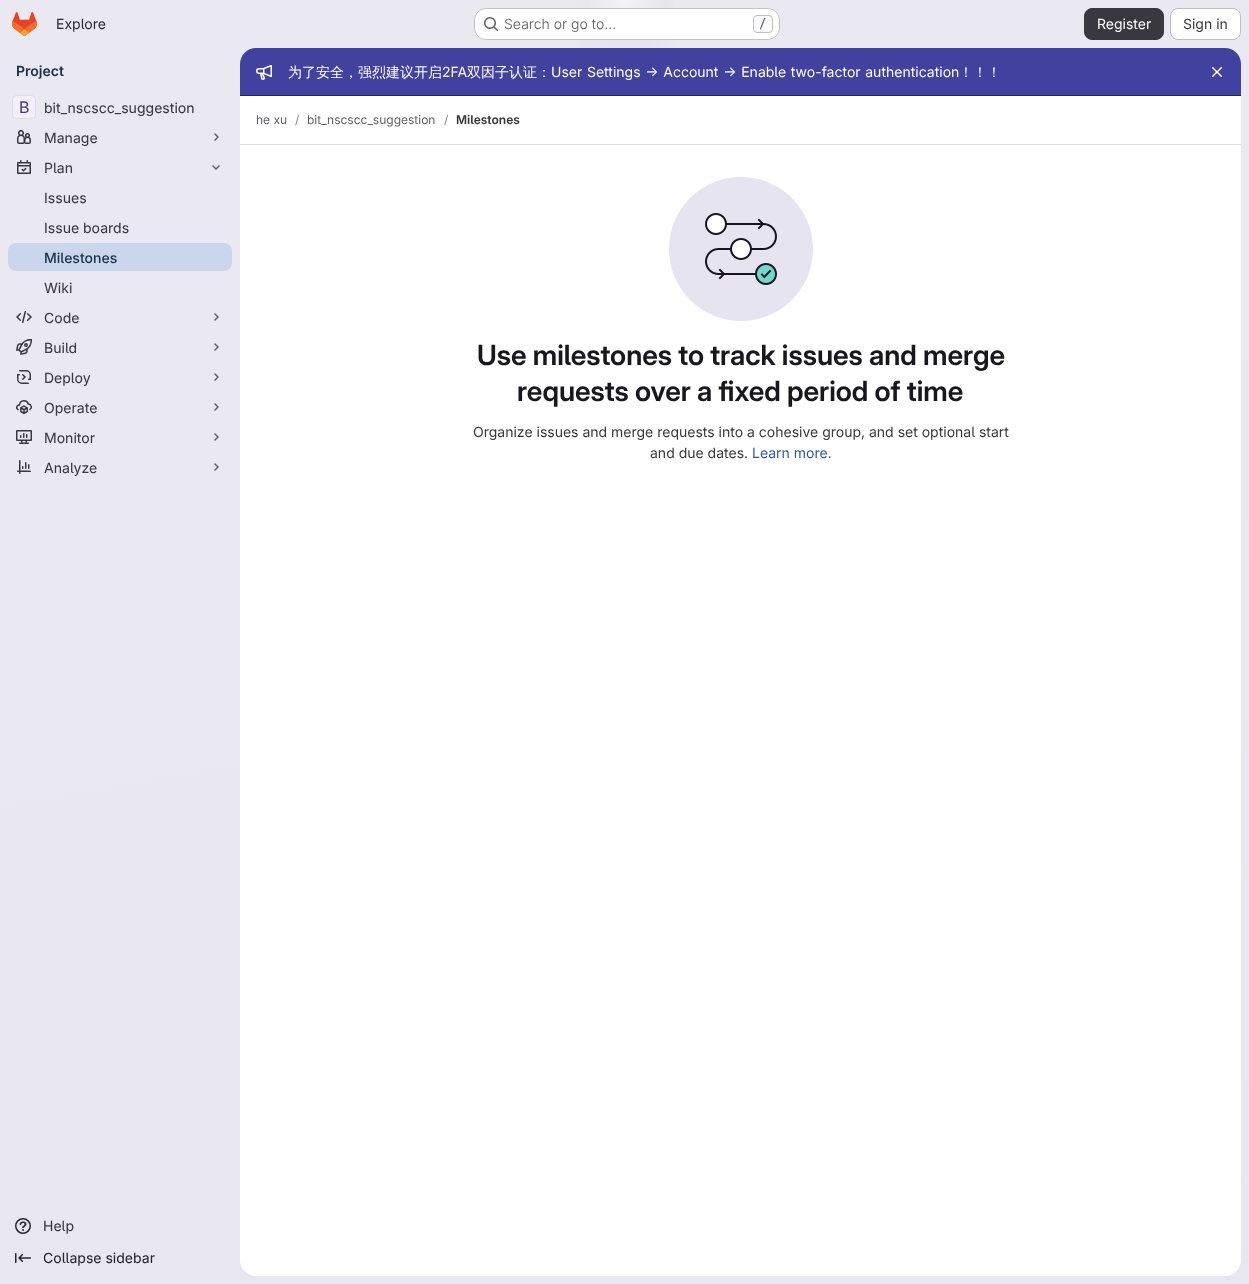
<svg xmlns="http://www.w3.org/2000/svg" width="1249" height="1284">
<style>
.a{font:14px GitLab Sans;fill:#28272d}
.b{font:300 14px GitLab Sans;fill:#626168}
.c{font:500 12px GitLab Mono;fill:#626168}
.d{font:14px GitLab Sans;fill:#fff}
.e{font:14px GitLab Sans;fill:#3a383f}
.f{font:600 14px 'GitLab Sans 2';fill:#18334e}
.g{font:16px 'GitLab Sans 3';fill:#493c83}
.h{font:14px 'GitLab Sans 2';fill:#3a383f}
.i{font:500 14px GitLab Sans;fill:#18334e}
.j{font:14px 'GitLab Sans 2';fill:#28272d}
.k{font:500 14px WenQuanYi Zen Hei;fill:#fff}
.l{font:12px GitLab Sans;fill:#626168}
.m{font:12px GitLab Sans;fill:#89888d}
.n{font:600 12px 'GitLab Sans 2';fill:#3a383f}
.o{font:600 28px GitLab Sans;fill:#18171d}
.p{font:14px GitLab Sans;fill:#2f5ca0}
</style>
<defs>
<linearGradient id="g1" gradientUnits="userSpaceOnUse" x1="753" y1="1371" x2="496" y2="-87"><stop offset="0" stop-color="#e8e6f0"/><stop offset="0.7" stop-color="#eae9f2"/></linearGradient>
<radialGradient id="g2" gradientUnits="userSpaceOnUse" cx="0" cy="0" r="1" gradientTransform="matrix(625 0 0 1284 625 0)"><stop offset="0" stop-color="#e4e2ed"/><stop offset="0.11" stop-color="#e4e2ed" stop-opacity="0"/></radialGradient>
<radialGradient id="g3" gradientUnits="userSpaceOnUse" cx="0" cy="0" r="1" gradientTransform="matrix(625 0 0 1284 625 0)"><stop offset="0" stop-color="#e4e2ec"/><stop offset="0.08" stop-color="#e4e2ec" stop-opacity="0"/></radialGradient>
<radialGradient id="g4" gradientUnits="userSpaceOnUse" cx="625" cy="0" r="1428"><stop offset="0" stop-color="#fff" stop-opacity="0.6"/><stop offset="0.03" stop-color="#fff" stop-opacity="0"/></radialGradient>
</defs>
<rect width="100%" height="100%" fill="#fff"/>
<path fill="url(#g1)" d="M0 0h1249v1284H0z"/>
<path fill="url(#g2)" d="M576 0h98v48H576z"/>
<path fill="url(#g3)" d="M616 17h27v26H616z"/>
<path fill="url(#g4)" d="M589 0h72v36H589z"/>
<image href="1.png" x="12" y="12" width="25" height="24"/>
<rect fill="#fff" x="474" y="8" width="306" height="32" rx="12"/>
<rect fill="none" stroke="#0505063d" x="474.5" y="8.5" width="305" height="31" rx="11.5"/>
<image href="2.png" x="484" y="17" width="14" height="14"/>
<rect fill="#fbfafd" stroke="#bfbfc3" x="753.5" y="15.5" width="19" height="17" rx="3.5"/>
<rect fill="#3a383f" stroke="#3a383f" x="1084.5" y="8.5" width="79" height="31" rx="7.5"/>
<rect fill="#fff" stroke="#bfbfc3" x="1170.5" y="8.5" width="70" height="31" rx="7.5"/>
<rect fill="#fff" x="12" y="95" width="24" height="24" rx="4"/>
<rect fill="#cbbbf23d" x="12" y="95" width="24" height="24" rx="4"/>
<rect fill="none" stroke="#05050614" x="12.5" y="95.5" width="23" height="23" rx="3.5"/>
<image href="3.png" x="17" y="129" width="14" height="15"/>
<path fill="none" stroke="#626168" stroke-width="1.5" stroke-linecap="round" stroke-linejoin="round" d="M215 134l3 3l-3 3"/>
<image href="4.png" x="17" y="160" width="14" height="14"/>
<path fill="none" stroke="#626168" stroke-width="1.5" stroke-linecap="round" stroke-linejoin="round" d="M219 166l-3 3l-3-3"/>
<rect fill="#c9d6eb" x="8" y="243" width="224" height="28" rx="8"/>
<image href="5.png" x="16" y="311" width="16" height="12"/>
<path fill="none" stroke="#626168" stroke-width="1.5" stroke-linecap="round" stroke-linejoin="round" d="M215 314l3 3l-3 3"/>
<image href="6.png" x="16" y="339" width="16" height="16"/>
<path fill="none" stroke="#626168" stroke-width="1.5" stroke-linecap="round" stroke-linejoin="round" d="M215 344l3 3l-3 3"/>
<image href="7.png" x="17" y="370" width="14" height="14"/>
<path fill="none" stroke="#626168" stroke-width="1.5" stroke-linecap="round" stroke-linejoin="round" d="M215 374l3 3l-3 3"/>
<image href="8.png" x="16" y="400" width="16" height="15"/>
<path fill="none" stroke="#626168" stroke-width="1.5" stroke-linecap="round" stroke-linejoin="round" d="M215 404l3 3l-3 3"/>
<image href="9.png" x="16" y="430" width="16" height="14"/>
<path fill="none" stroke="#626168" stroke-width="1.5" stroke-linecap="round" stroke-linejoin="round" d="M215 434l3 3l-3 3"/>
<image href="10.png" x="17" y="460" width="14" height="14"/>
<path fill="none" stroke="#626168" stroke-width="1.5" stroke-linecap="round" stroke-linejoin="round" d="M215 464l3 3l-3 3"/>
<image href="11.png" x="15" y="1218" width="16" height="16"/>
<image href="12.png" x="15" y="1253" width="16" height="10"/>
<rect fill="#fff" x="240" y="48" width="1001" height="1228" rx="16"/>
<path fill="#41419f" d="M256 48h969c9 0 16 7 16 16v32h-1001v-32c0-9 7-16 16-16z"/>
<path fill="#222261" d="M240 95h1001v1H240z"/>
<image href="13.png" x="256" y="65" width="16" height="15"/>
<image href="14.png" x="1212" y="67" width="10" height="10"/>
<path fill="#e1dfec" d="M240 144h1001v1H240z"/>
<image href="15.png" x="669" y="177" width="144" height="144"/>
<text class="a" x="56" y="29">Explore</text>
<text class="b" x="504" y="29">Search or go to…</text>
<text class="c" x="759" y="28">/</text>
<text class="d" x="1097" y="29">Register</text>
<text class="e" x="1183" y="29">Sign in</text>
<text class="f" x="16" y="76">Project</text>
<text class="g" x="19" y="113">B</text>
<text class="h" x="44" y="113">bit_nscscc_suggestion</text>
<text class="h" x="44" y="143">Manage</text>
<text class="h" x="44" y="173">Plan</text>
<text class="h" x="44" y="203">Issues</text>
<text class="h" x="44" y="233">Issue boards</text>
<text class="i" x="44" y="263">Milestones</text>
<text class="h" x="44" y="293">Wiki</text>
<text class="h" x="44" y="323">Code</text>
<text class="h" x="44" y="353">Build</text>
<text class="h" x="44" y="383">Deploy</text>
<text class="h" x="44" y="413">Operate</text>
<text class="h" x="44" y="443">Monitor</text>
<text class="h" x="44" y="473">Analyze</text>
<text class="h" x="43" y="1231">Help</text>
<text class="j" x="43" y="1263">Collapse sidebar</text>
<text class="k" x="288" y="77">为了安全，强烈建议开启</text>
<text class="d" x="442" y="77">2FA</text>
<text class="k" x="467" y="77">双因子认证：</text>
<text class="d" x="551" y="77" word-spacing="0.75">User Settings -&gt; Account -&gt; Enable two-factor authentication</text>
<text class="k" x="959" y="77">！！！</text>
<text class="l" x="256" y="124">he xu</text>
<text class="m" x="295" y="124">/</text>
<text class="l" x="307" y="124">bit_nscscc_suggestion</text>
<text class="m" x="444" y="124">/</text>
<text class="n" x="456" y="124">Milestones</text>
<text class="o" x="477" y="365">Use milestones to track issues and merge</text>
<text class="o" x="517" y="401">requests over a fixed period of time</text>
<text class="e" x="473" y="437">Organize issues and merge requests into a cohesive group, and set optional start</text>
<text class="e" x="650" y="458">and due dates.</text>
<text class="p" x="752" y="458">Learn more.</text>
</svg>
